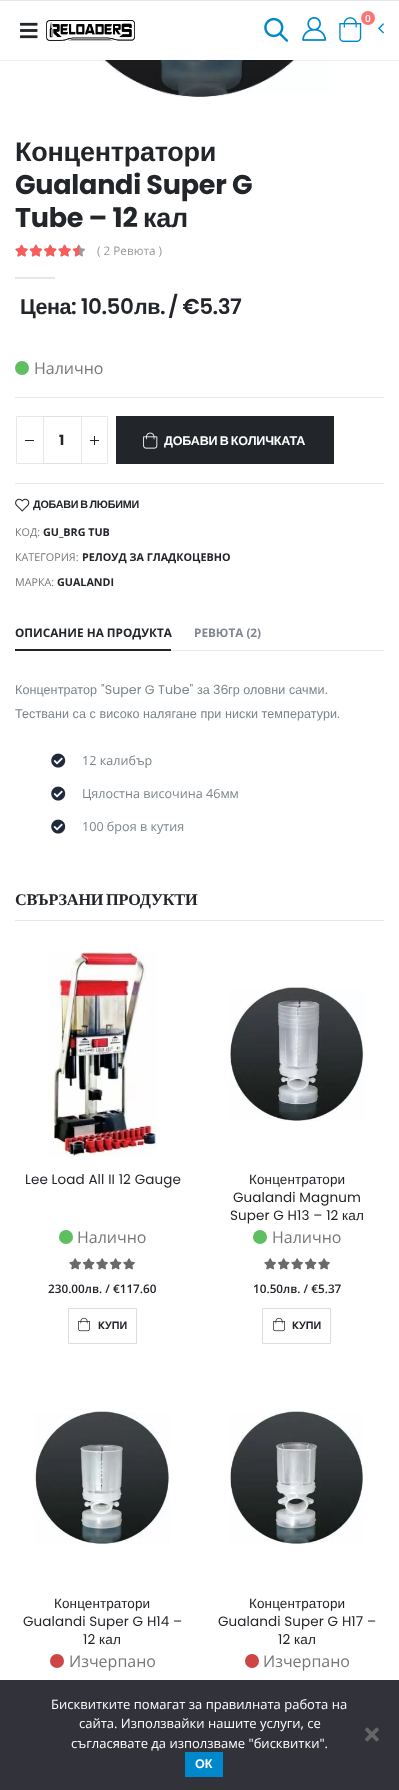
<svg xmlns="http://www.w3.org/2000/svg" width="399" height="1790">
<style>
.a{font:600 10px Open Sans;fill:#fff}
.b{font:bold 27px Liberation Sans;letter-spacing:-0.25px;fill:#222529}
.c{font:bold 27px Poppins;letter-spacing:-0.25px;fill:#222529}
.d{font:11.75px Open Sans;fill:#999}
.e{font:bold 21.5px Liberation Sans;letter-spacing:-0.5px;fill:#222529}
.f{font:600 21.5px Poppins;letter-spacing:-0.5px;fill:#222529}
.g{font:16px Open Sans;fill:#777}
.h{font:bold 14px Poppins;fill:#222529}
.i{font:bold 12.6px Liberation Sans;letter-spacing:-0.2px;fill:#fff}
.j{font:bold 10.75px Liberation Sans;letter-spacing:-0.2px;fill:#222529}
.k{font:10.75px Open Sans;fill:#777}
.l{font:bold 10.75px Open Sans;fill:#222529}
.m{font:bold 11.75px Open Sans;fill:#222529}
.n{font:bold 11.75px Open Sans;fill:#818692}
.o{font:12.6px Liberation Sans;letter-spacing:0.05px;fill:#7b858a}
.p{font:12.6px Poppins;letter-spacing:0.05px;fill:#7b858a}
.q{font:12.6px Open Sans;fill:#7b858a}
.r{font:bold 16.25px Liberation Serif;letter-spacing:-0.2px;fill:#222529}
.s{font:13.5px Poppins;letter-spacing:0.1px;fill:#222529}
.t{font:600 11.75px Open Sans;fill:#222529}
.u{font:600 10.75px Poppins;fill:#222529}
.v{font:bold 10.75px Liberation Sans;fill:#222529}
.w{font:13.5px Liberation Sans;letter-spacing:0.1px;fill:#222529}
.x{font:13px Open Sans;fill:#fff}
.y{font:bold 12.6px Liberation Sans;fill:#fff}
</style>
<rect width="100%" height="100%" fill="#fff"/>
<image href="7.png" x="66" y="60" width="267" height="37"/>
<path fill="#0000000f" d="M0 60h399v1H0z"/>
<path fill="#e7e7e7" d="M0 0h399v1H0z"/>
<image href="1.png" x="264" y="17" width="25" height="25"/>
<image href="2.png" x="302" y="16" width="25" height="25"/>
<image href="3.png" x="339" y="17" width="23" height="25"/>
<circle fill="#ff7272" cx="368" cy="18" r="7"/>
<image href="4.png" x="378" y="23" width="6" height="11"/>
<image href="5.png" x="20" y="22" width="18" height="17"/>
<image href="6.png" x="46" y="20" width="89" height="21"/>
<image href="8.png" x="15" y="244" width="70" height="13"/>
<image href="9.png" x="15" y="244" width="64" height="13"/>
<path fill="#e7e7e7" d="M15 277h40v2H15z"/>
<circle fill="#5fbe5f" cx="22" cy="368" r="7"/>
<path fill="#e7e7e7" d="M15 397h369v1H15z"/>
<path fill="none" stroke="#dae2e6" d="M43.5 416.5h38v47H43.5z"/>
<path fill="none" stroke="#e7e7e7" d="M16.5 416.5h27v47H16.5z"/>
<path fill="#222529" d="M25 440h9v1H25z"/>
<path fill="none" stroke="#e7e7e7" d="M81.5 416.5h26v47H81.5z"/>
<path fill="#222529" d="M94 436h1v9H94z"/>
<path fill="#222529" d="M90 440h9v1H90z"/>
<path fill="#222529" d="M116 416h218v48H116z"/>
<image href="10.png" x="143" y="432" width="15" height="17"/>
<path fill="#e7e7e7" d="M15 483h369v1H15z"/>
<image href="11.png" x="15" y="498" width="15" height="14"/>
<path fill="#e7e7e7" d="M171 650h213v1H171z"/>
<path fill="#222529" d="M15 649h156v2H15z"/>
<image href="12.png" x="51" y="753" width="15" height="15"/>
<image href="12.png" x="51" y="786" width="15" height="15"/>
<image href="12.png" x="51" y="819" width="15" height="15"/>
<path fill="#e7e7e7" d="M15 920h369v1H15z"/>
<image href="13.png" x="48" y="952" width="109" height="205"/>
<circle fill="#5fbe5f" cx="66" cy="1237" r="7"/>
<image href="14.png" x="69" y="1258" width="66" height="12"/>
<image href="15.png" x="69" y="1258" width="66" height="12"/>
<path fill="none" stroke="#ddd" d="M68.5 1308.5h68v35H68.5z"/>
<image href="16.png" x="78" y="1317" width="12" height="15"/>
<image href="17.png" x="228" y="987" width="137" height="134"/>
<circle fill="#5fbe5f" cx="260" cy="1237" r="7"/>
<image href="14.png" x="264" y="1258" width="66" height="12"/>
<image href="15.png" x="264" y="1258" width="66" height="12"/>
<path fill="none" stroke="#ddd" d="M262.5 1308.5h68v35H262.5z"/>
<image href="16.png" x="273" y="1317" width="12" height="15"/>
<image href="18.png" x="34" y="1411" width="136" height="133"/>
<circle fill="#ce4545" cx="57" cy="1661" r="7"/>
<image href="19.png" x="229" y="1411" width="134" height="133"/>
<circle fill="#ce4545" cx="252" cy="1661" r="7"/>
<path fill="#32323a" d="M0 1680h399v110H0z"/>
<path fill="#08c" d="M185 1752h38v25H185z"/>
<image href="20.png" x="365" y="1727" width="14" height="15"/>
<text class="a" x="365" y="22">0</text>
<text class="b" x="15" y="161">Концентратори</text>
<text class="c" x="15" y="194">Gualandi Super G</text>
<text class="c" x="15" y="227">Tube – 12</text>
<text class="b" x="143" y="227">кал</text>
<text class="d" x="97" y="255">( 2 Ревюта )</text>
<text class="e" x="20" y="314">Цена</text>
<text class="f" x="71" y="314">: 10.50</text>
<text class="e" x="134" y="314">лв</text>
<text class="f" x="160" y="314">.</text>
<text class="f" x="168" y="314">/ €5.37</text>
<text class="g" x="34" y="374">Налично</text>
<text class="h" x="59" y="445">1</text>
<text class="i" x="164" y="445" word-spacing="-1">ДОБАВИ В КОЛИЧКАТА</text>
<text class="j" x="33" y="508" word-spacing="-1">ДОБАВИ В ЛЮБИМИ</text>
<text class="k" x="15" y="536">КОД:</text>
<text class="l" x="43" y="536">GU_BRG TUB</text>
<text class="k" x="15" y="561">КАТЕГОРИЯ:</text>
<text class="l" x="82" y="561">РЕЛОУД ЗА ГЛАДКОЦЕВНО</text>
<text class="k" x="15" y="586">МАРКА:</text>
<text class="l" x="57" y="586">GUALANDI</text>
<text class="m" x="15" y="637">ОПИСАНИЕ НА ПРОДУКТА</text>
<text class="n" x="194" y="637">РЕВЮТА (2)</text>
<text class="o" x="15" y="694">Концентратор</text>
<text class="p" x="101" y="694">"Super G Tube"</text>
<text class="o" x="197" y="694">за</text>
<text class="p" x="213" y="694">36</text>
<text class="o" x="228" y="694">гр оловни сачми</text>
<text class="p" x="325" y="694">.</text>
<text class="o" x="15" y="718">Тествани са с високо налягане при ниски температури</text>
<text class="p" x="337" y="718">.</text>
<text class="q" x="82" y="765">12 калибър</text>
<text class="q" x="82" y="798">Цялостна височина 46мм</text>
<text class="q" x="82" y="831">100 броя в кутия</text>
<text class="r" x="15" y="905" word-spacing="-1">СВЪРЗАНИ ПРОДУКТИ</text>
<text class="s" x="25" y="1184">Lee Load All II 12 Gauge</text>
<text class="g" x="77" y="1243">Налично</text>
<text class="t" x="48" y="1293">230.00лв. / €117.60</text>
<text class="u" x="98" y="1329">K</text>
<text class="v" x="105" y="1329">УПИ</text>
<text class="w" x="249" y="1184">Концентратори</text>
<text class="s" x="233" y="1202">Gualandi Magnum</text>
<text class="s" x="230" y="1220">Super G H13 – 12</text>
<text class="w" x="342" y="1220">кал</text>
<text class="g" x="272" y="1243">Налично</text>
<text class="t" x="253" y="1293">10.50лв. / €5.37</text>
<text class="u" x="292" y="1329">K</text>
<text class="v" x="299" y="1329">УПИ</text>
<text class="w" x="54" y="1608">Концентратори</text>
<text class="s" x="23" y="1626">Gualandi Super G H14 –</text>
<text class="s" x="83" y="1644">12</text>
<text class="w" x="99" y="1644">кал</text>
<text class="g" x="69" y="1667">Изчерпано</text>
<text class="w" x="249" y="1608">Концентратори</text>
<text class="s" x="218" y="1626">Gualandi Super G H17 –</text>
<text class="s" x="278" y="1644">12</text>
<text class="w" x="294" y="1644">кал</text>
<text class="g" x="263" y="1667">Изчерпано</text>
<text class="x" x="51" y="1709">Бисквитките помагат за правилната работа на</text>
<text class="x" x="79" y="1728">сайта. Използвайки нашите услуги, се</text>
<text class="x" x="71" y="1748">съгласявате да използваме "бисквитки".</text>
<text class="y" x="195" y="1768">ОК</text>
</svg>
